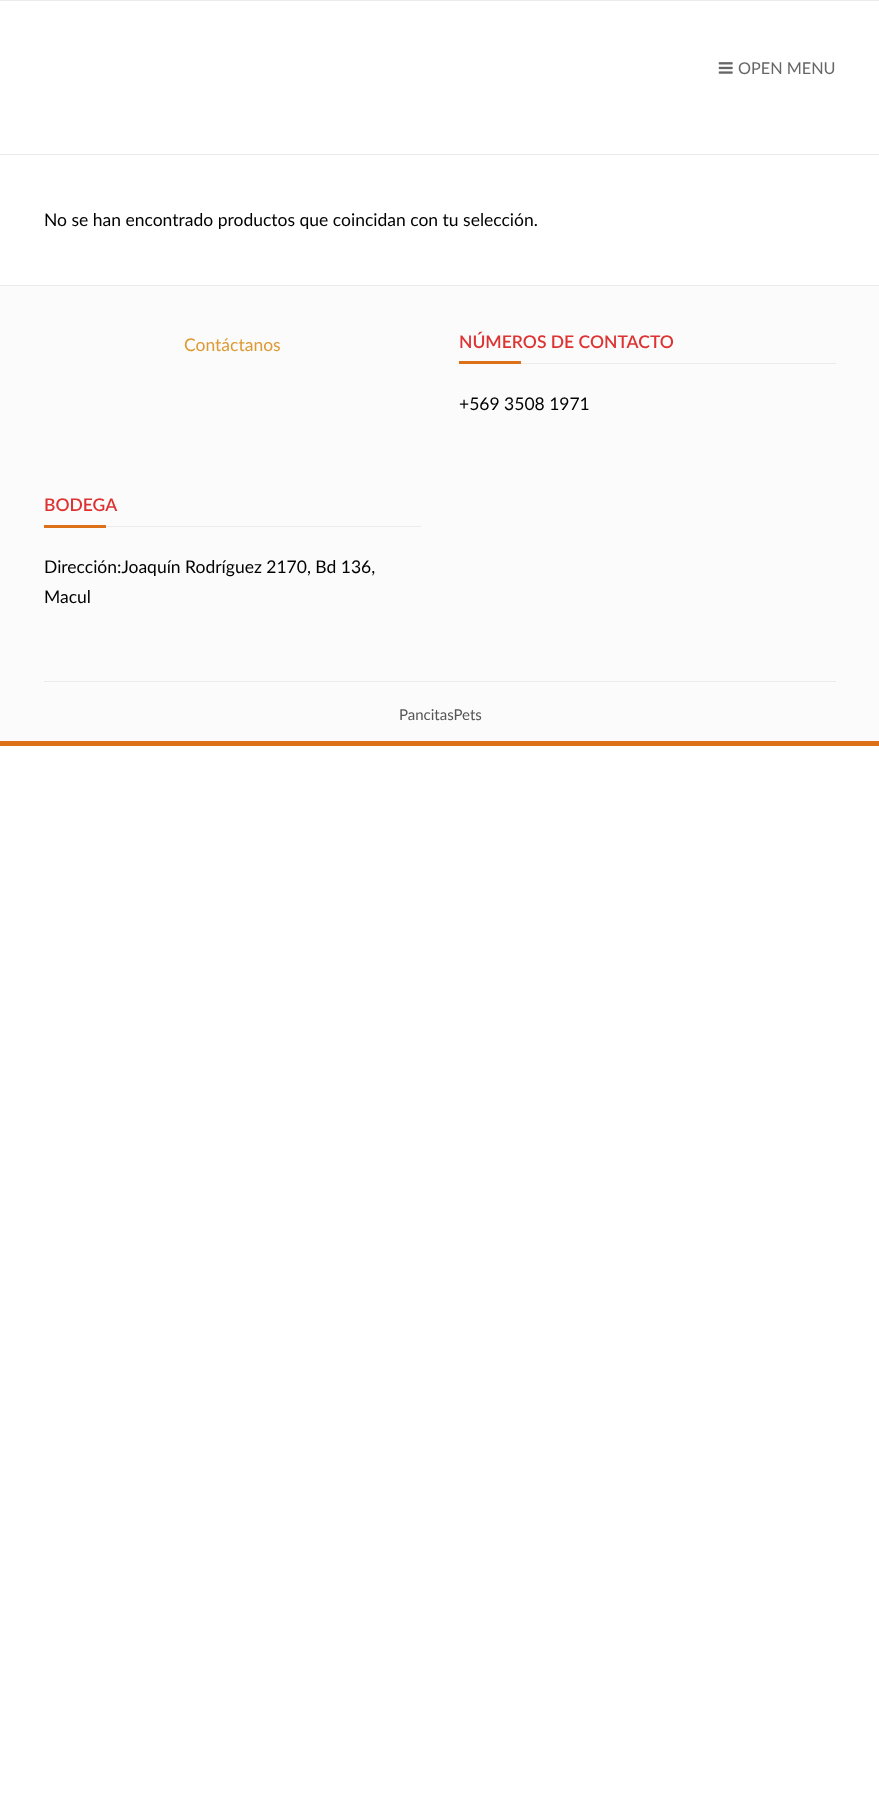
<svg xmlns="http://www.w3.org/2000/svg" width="879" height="1802">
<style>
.a{font:16.25px Lato;fill:#666}
.b{font:17.5px Lato;fill:#000}
.c{font:17.5px Lato;fill:#d93}
.d{font:600 17.5px Lato;fill:#d33}
.e{font:15px Lato;fill:#555}
</style>
<rect width="100%" height="100%" fill="#fff"/>
<path fill="#ebebeb" d="M0 0h879v1H0z"/>
<path fill="#ebebeb" d="M0 154h879v1H0z"/>
<image href="1.png" x="718" y="62" width="15" height="12"/>
<path fill="#fbfbfb" d="M0 286h879v455H0z"/>
<path fill="#ebebeb" d="M0 285h879v1H0z"/>
<path fill="#dc711a" d="M0 741h879v5H0z"/>
<path fill="#ebebeb" d="M521 363h315v1H521z"/>
<path fill="#dc711a" d="M459 361h62v3H459z"/>
<path fill="#ebebeb" d="M106 526h315v1H106z"/>
<path fill="#dc711a" d="M44 525h62v3H44z"/>
<path fill="#ebebeb" d="M44 681h792v1H44z"/>
<text class="a" x="738" y="74">OPEN MENU</text>
<text class="b" x="44" y="226">No se han encontrado productos que coincidan con tu selección.</text>
<text class="c" x="184" y="351">Contáctanos</text>
<text class="d" x="459" y="348">NÚMEROS DE CONTACTO</text>
<text class="b" x="459" y="410">+569 3508 1971</text>
<text class="d" x="44" y="511">BODEGA</text>
<text class="b" x="44" y="573">Dirección:Joaquín Rodríguez 2170, Bd 136,</text>
<text class="b" x="44" y="603">Macul</text>
<text class="e" x="399" y="720">PancitasPets</text>
</svg>
